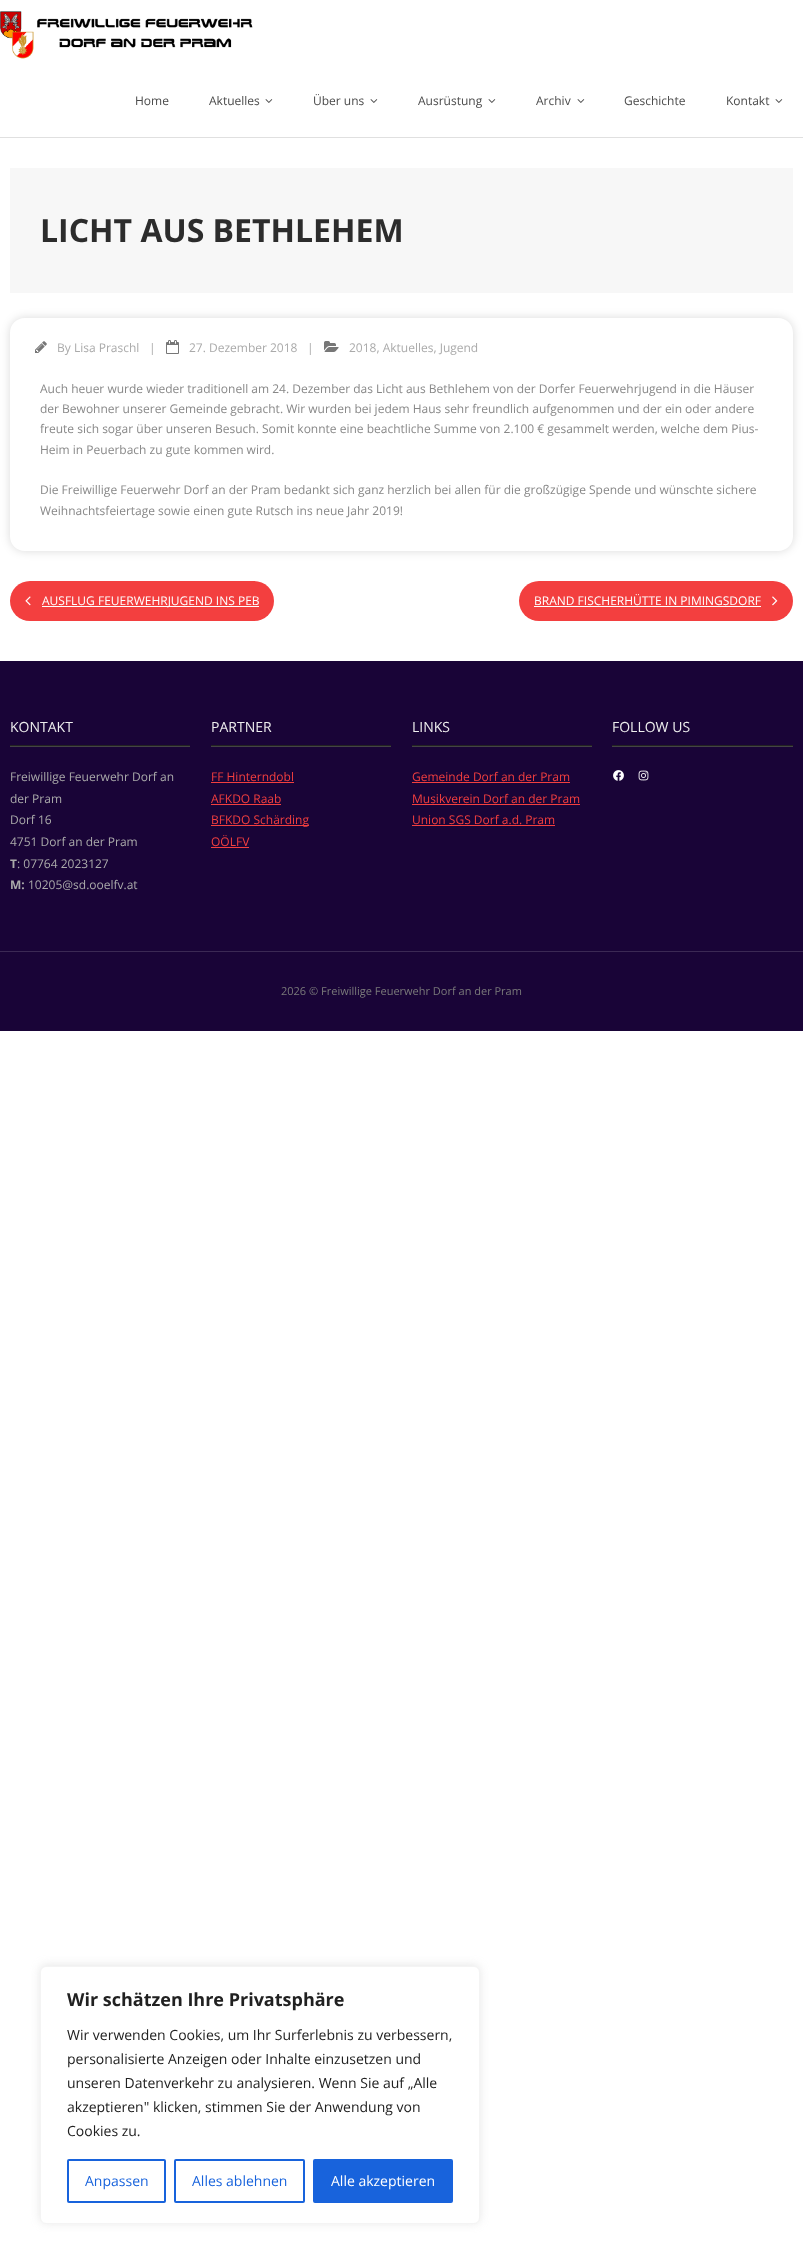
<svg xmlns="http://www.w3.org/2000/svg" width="803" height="2264">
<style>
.a{font:12px Open Sans;fill:#4a4a4a}
.b{font:bold 32px Open Sans;fill:#2c2c2c}
.c{font:12px Open Sans;fill:#aaa}
.d{font:12px Open Sans;fill:#888}
.e{font:12px Open Sans;fill:#fff}
.f{font:14px Open Sans;fill:#eee}
.g{font:bold 12px Open Sans;fill:#aaa}
.h{font:12px Open Sans;fill:#f33f3f}
.i{font:11px Open Sans;fill:#7a7a7a}
.j{font:bold 18px Open Sans;fill:#212121}
.k{font:14px Open Sans;fill:#212121}
.l{font:14px Open Sans;fill:#1863dc}
.m{font:14px Open Sans;fill:#fff}
</style>
<defs>
<clipPath id="clip1"><path d="M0 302h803v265h-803zm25 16h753c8.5 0 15 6.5 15 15v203c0 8.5-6.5 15-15 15h-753c-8.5 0-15-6.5-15-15v-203c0-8.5 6.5-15 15-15z" clip-rule="evenodd"/></clipPath>
</defs>
<rect width="100%" height="100%" fill="#fff"/>
<path fill="#e0e0e0" d="M0 137h803v1H0z"/>
<image href="1.png" x="0" y="11" width="253" height="48"/>
<image href="2.png" x="265" y="99" width="8" height="4"/>
<image href="2.png" x="370" y="99" width="8" height="4"/>
<image href="2.png" x="488" y="99" width="8" height="4"/>
<image href="2.png" x="577" y="99" width="8" height="4"/>
<image href="2.png" x="775" y="99" width="8" height="4"/>
<path fill="#f7f7f7" d="M10 168h783v125H10z"/>
<g clip-path="url(#clip1)">
<rect fill="#00000026" filter="blur(5px)" x="10" y="318" width="783" height="233" rx="15"/>
</g>
<image href="3.png" x="35" y="341" width="12" height="12"/>
<image href="4.png" x="166" y="340" width="13" height="14"/>
<image href="5.png" x="324" y="341" width="15" height="11"/>
<rect fill="#f33f3f" x="10" y="581" width="264" height="40" rx="20"/>
<image href="6.png" x="25" y="596" width="6" height="10"/>
<path fill="#fff" d="M42 606h217v1H42z"/>
<rect fill="#f33f3f" x="519" y="581" width="274" height="40" rx="20"/>
<path fill="#fff" d="M534 606h227v1H534z"/>
<image href="7.png" x="772" y="596" width="6" height="10"/>
<path fill="#190437" d="M0 661h803v290H0z"/>
<path fill="#444" d="M10 746h180v1H10z"/>
<path fill="#222" d="M10 745h180v1H10z"/>
<path fill="#444" d="M211 746h180v1H211z"/>
<path fill="#222" d="M211 745h180v1H211z"/>
<path fill="#f33f3f" d="M211 782h83v1H211z"/>
<path fill="#f33f3f" d="M211 804h70v1H211z"/>
<path fill="#f33f3f" d="M211 825h98v1H211z"/>
<path fill="#f33f3f" d="M211 847h38v1H211z"/>
<path fill="#444" d="M412 746h180v1H412z"/>
<path fill="#222" d="M412 745h180v1H412z"/>
<path fill="#f33f3f" d="M412 782h158v1H412z"/>
<path fill="#f33f3f" d="M412 804h168v1H412z"/>
<path fill="#f33f3f" d="M412 825h143v1H412z"/>
<path fill="#444" d="M612 746h181v1H612z"/>
<path fill="#222" d="M612 745h181v1H612z"/>
<image href="8.png" x="613" y="770" width="11" height="11"/>
<image href="9.png" x="638" y="770" width="11" height="11"/>
<path fill="#190437" d="M0 952h803v79H0z"/>
<path fill="#3b2954" d="M0 951h803v1H0z"/>
<rect fill="#acabab4d" filter="blur(5px)" x="40" y="1965" width="440" height="258" rx="6"/>
<rect fill="#fff" stroke="#f4f4f4" x="40.5" y="1966.5" width="439" height="257" rx="5.5"/>
<rect fill="none" stroke="#1863dc" stroke-width="2" x="68" y="2160" width="97" height="42" rx="1"/>
<rect fill="none" stroke="#1863dc" stroke-width="2" x="175" y="2160" width="129" height="42" rx="1"/>
<rect fill="#1863dc" stroke="#1863dc" stroke-width="2" x="314" y="2160" width="138" height="42" rx="1"/>
<text class="a" x="135" y="105">Home</text>
<text class="a" x="209" y="105">Aktuelles</text>
<text class="a" x="313" y="105">Über uns</text>
<text class="a" x="418" y="105">Ausrüstung</text>
<text class="a" x="536" y="105">Archiv</text>
<text class="a" x="624" y="105">Geschichte</text>
<text class="a" x="726" y="105">Kontakt</text>
<text class="b" x="40" y="242">LICHT AUS BETHLEHEM</text>
<text class="c" x="57" y="352">By Lisa Praschl</text>
<text class="c" x="149" y="352">|</text>
<text class="c" x="189" y="352">27. Dezember 2018</text>
<text class="c" x="307" y="352">|</text>
<text class="c" x="349" y="352">2018, Aktuelles, Jugend</text>
<text class="d" x="40" y="393">Auch heuer wurde wieder traditionell am 24. Dezember das Licht aus Bethlehem von der Dorfer Feuerwehrjugend in die Häuser</text>
<text class="d" x="40" y="413">der Bewohner unserer Gemeinde gebracht. Wir wurden bei jedem Haus sehr freundlich aufgenommen und der ein oder andere</text>
<text class="d" x="40" y="433">freute sich sogar über unseren Besuch. Somit konnte eine beachtliche Summe von 2.100 € gesammelt werden, welche dem Pius-</text>
<text class="d" x="40" y="454">Heim in Peuerbach zu gute kommen wird.</text>
<text class="d" x="40" y="494">Die Freiwillige Feuerwehr Dorf an der Pram bedankt sich ganz herzlich bei allen für die großzügige Spende und wünschte sichere</text>
<text class="d" x="40" y="515">Weihnachtsfeiertage sowie einen gute Rutsch ins neue Jahr 2019!</text>
<text class="e" x="42" y="605">AUSFLUG FEUERWEHRJUGEND INS PEB</text>
<text class="e" x="534" y="605">BRAND FISCHERHÜTTE IN PIMINGSDORF</text>
<text class="f" x="10" y="732">KONTAKT</text>
<text class="c" x="10" y="781">Freiwillige Feuerwehr Dorf an</text>
<text class="c" x="10" y="803">der Pram</text>
<text class="c" x="10" y="824">Dorf 16</text>
<text class="c" x="10" y="846">4751 Dorf an der Pram</text>
<text class="g" x="10" y="868">T</text>
<text class="c" x="17" y="868">: 07764 2023127</text>
<text class="g" x="10" y="889">M:</text>
<text class="c" x="28" y="889">10205@sd.ooelfv.at</text>
<text class="f" x="211" y="732">PARTNER</text>
<text class="h" x="211" y="781">FF Hinterndobl</text>
<text class="h" x="211" y="803">AFKDO Raab</text>
<text class="h" x="211" y="824">BFKDO Schärding</text>
<text class="h" x="211" y="846">OÖLFV</text>
<text class="f" x="412" y="732">LINKS</text>
<text class="h" x="412" y="781">Gemeinde Dorf an der Pram</text>
<text class="h" x="412" y="803">Musikverein Dorf an der Pram</text>
<text class="h" x="412" y="824">Union SGS Dorf a.d. Pram</text>
<text class="f" x="612" y="732">FOLLOW US</text>
<text class="i" x="281" y="995">2026 © Freiwillige Feuerwehr Dorf an der Pram</text>
<text class="j" x="67" y="2006">Wir schätzen Ihre Privatsphäre</text>
<text class="k" x="67" y="2040">Wir verwenden Cookies, um Ihr Surferlebnis zu verbessern,</text>
<text class="k" x="67" y="2064">personalisierte Anzeigen oder Inhalte einzusetzen und</text>
<text class="k" x="67" y="2088">unseren Datenverkehr zu analysieren. Wenn Sie auf „Alle</text>
<text class="k" x="67" y="2112">akzeptieren" klicken, stimmen Sie der Anwendung von</text>
<text class="k" x="67" y="2136">Cookies zu.</text>
<text class="l" x="85" y="2186">Anpassen</text>
<text class="l" x="192" y="2186">Alles ablehnen</text>
<text class="m" x="331" y="2186">Alle akzeptieren</text>
</svg>
